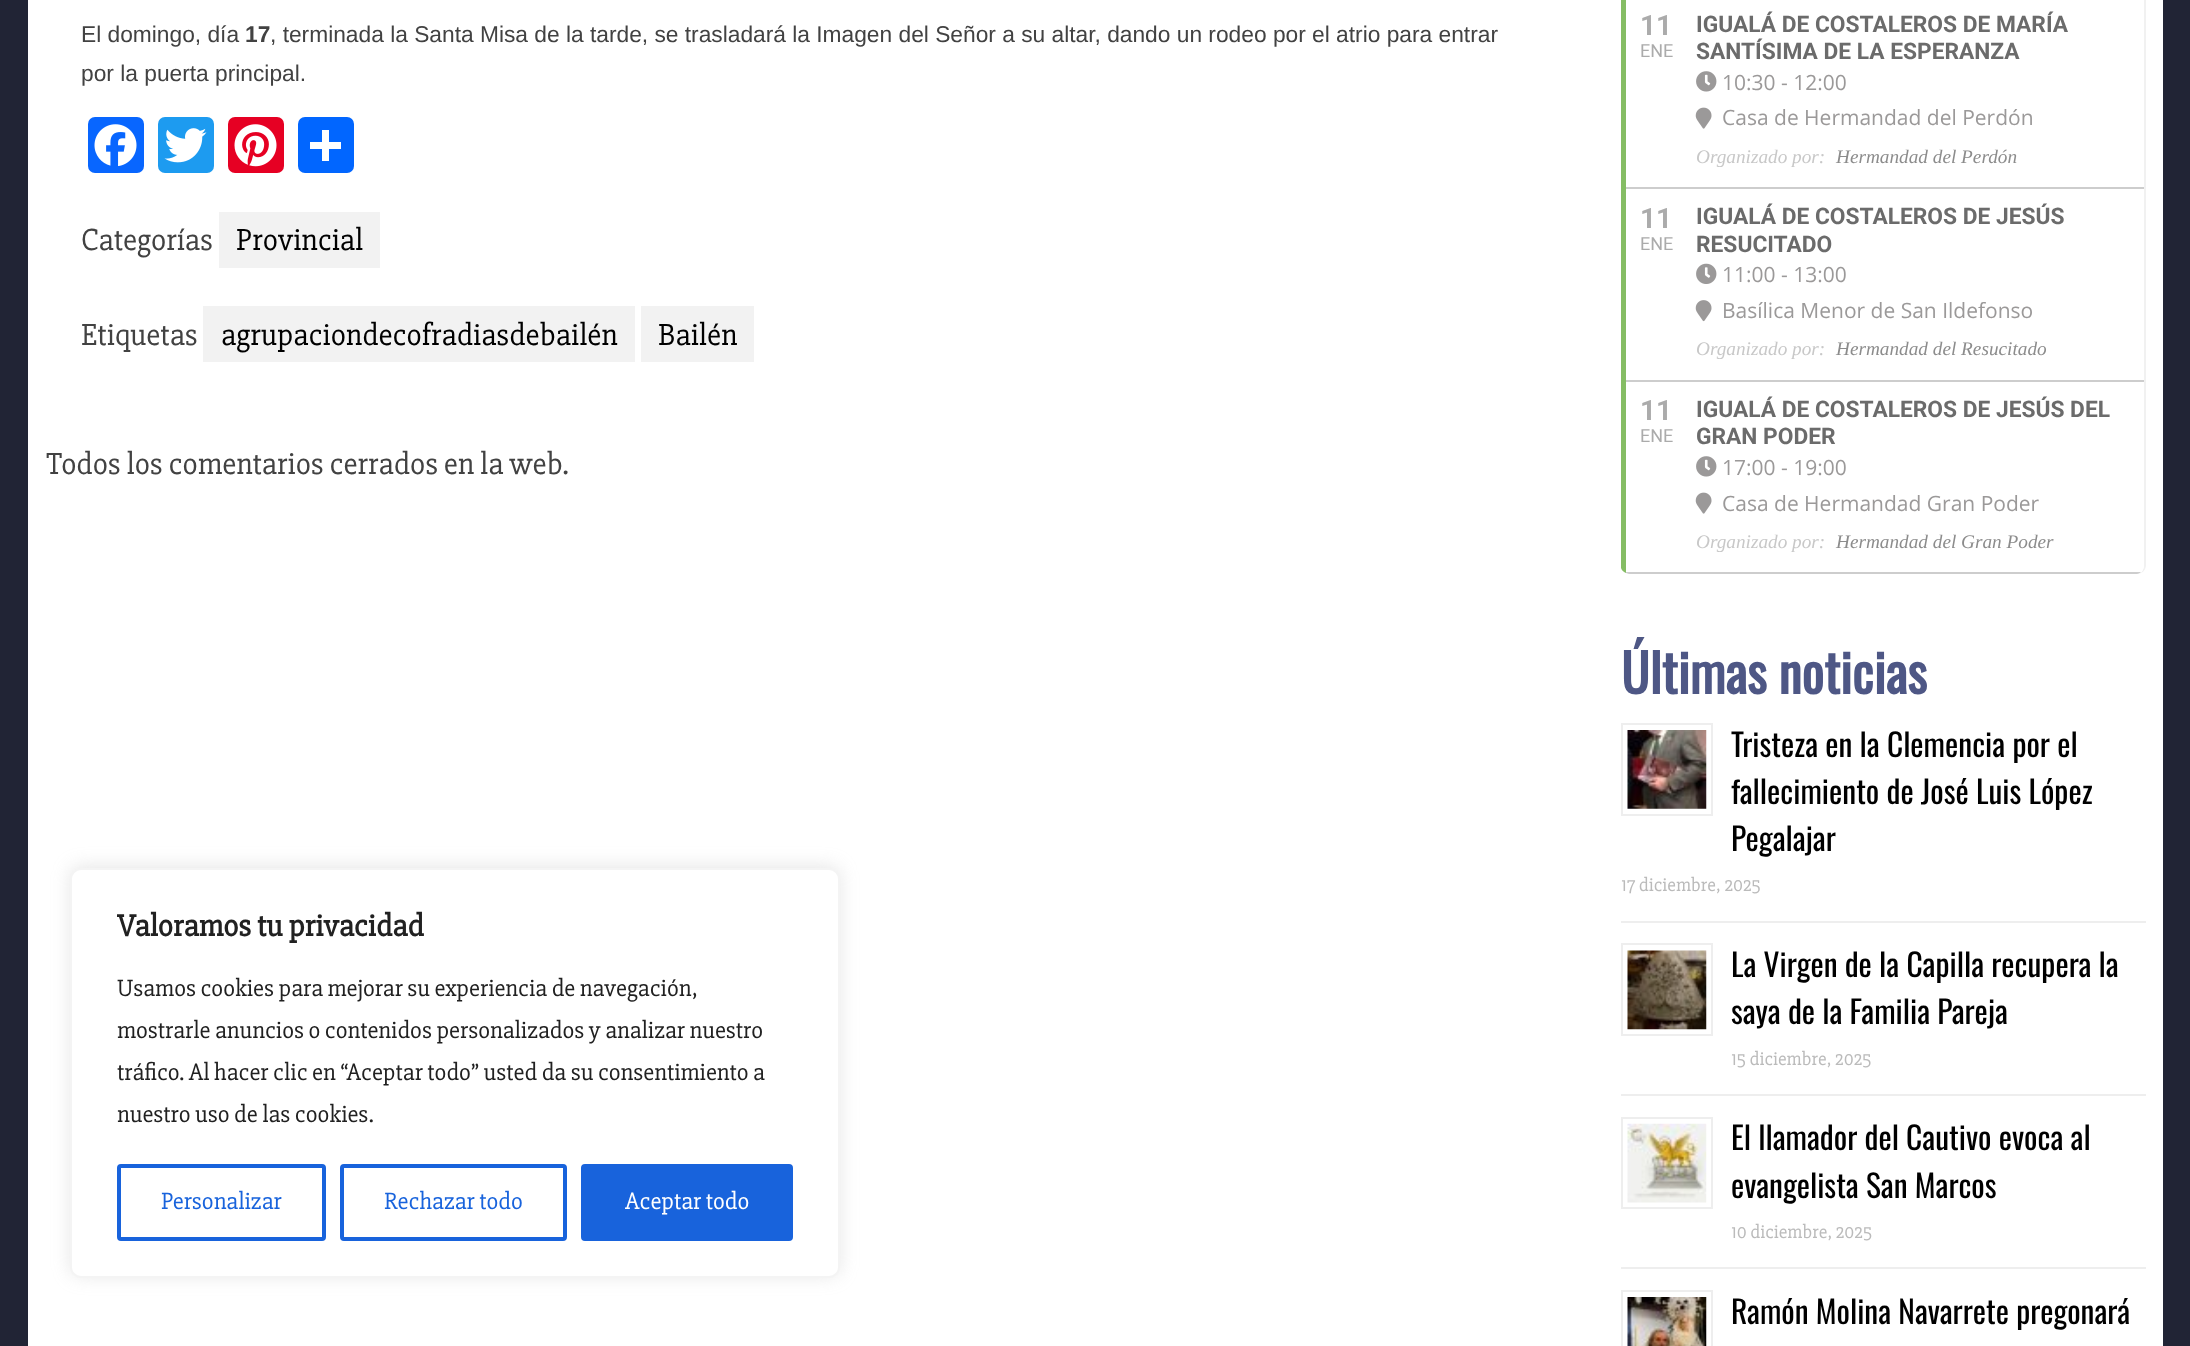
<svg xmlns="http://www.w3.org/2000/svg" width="2190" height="1346">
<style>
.a{font:22.75px Liberation Sans;fill:#424242}
.b{font:bold 22.75px Liberation Sans;fill:#424242}
.c{font:31.5px 'Slabo 27px';fill:#424242}
.d{font:31.5px 'Slabo 27px';fill:#000}
.e{font:bold 28px Roboto;fill:#ababab}
.f{font:18px Roboto;fill:#ababab}
.g{font:bold 22.75px Roboto;fill:#6b6b6b}
.h{font:21px Open Sans;fill:#9b9999}
.i{font:italic 19.25px Liberation Serif;fill:#c8c8c8}
.j{font:italic 19.25px Liberation Serif;fill:#8c8c8c}
.k{font:bold 52.5px Oswald;fill:#4e5785}
.l{font:31.5px Oswald;fill:#000}
.m{font:19.25px 'Slabo 27px';fill:#bbb}
.n{font:bold 31.5px 'Slabo 27px';fill:#212121}
.o{font:24.5px 'Slabo 27px';fill:#212121}
.p{font:24.5px 'Slabo 27px';fill:#1863dc}
.q{font:24.5px 'Slabo 27px';fill:#fff}
</style>
<rect width="100%" height="100%" fill="#212435"/>
<path fill="#fff" d="M28 0h2135v1346H28z"/>
<rect fill="#0866ff" x="88" y="117" width="56" height="56" rx="7"/>
<image href="1.png" x="94" y="124" width="43" height="43"/>
<rect fill="#1d9bf0" x="158" y="117" width="56" height="56" rx="7"/>
<image href="2.png" x="164" y="128" width="43" height="35"/>
<rect fill="#e60023" x="228" y="117" width="56" height="56" rx="7"/>
<image href="3.png" x="234" y="124" width="43" height="43"/>
<rect fill="#0166ff" x="298" y="117" width="56" height="56" rx="7"/>
<path fill="#fff" d="M322 130h7v31H322z"/>
<path fill="#fff" d="M310 142h31v7H310z"/>
<path fill="#f2f2f2" d="M219 212h161v56H219z"/>
<path fill="#f2f2f2" d="M203 306h432v56H203z"/>
<path fill="#f2f2f2" d="M641 306h113v56H641z"/>
<path fill="#f1f1f1" fill-rule="evenodd" d="M1629-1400h508c5 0 9 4 9 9v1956c0 5-4 9-9 9h-508c-5 0-9-4-9-9v-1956c0-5 4-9 9-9zm0 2h508c4 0 7 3 7 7v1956c0 5-3 9-7 9h-508c-5 0-9-4-9-9v-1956c0-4 4-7 9-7z"/>
<path fill="#85bd64" d="M1621 0h5v382H1621z"/>
<image href="4.png" x="1696" y="71" width="21" height="21"/>
<image href="5.png" x="1695" y="107" width="17" height="22"/>
<path fill="#cdcdcd" d="M1626 187h518v2H1626z"/>
<image href="6.png" x="1696" y="263" width="21" height="21"/>
<image href="7.png" x="1695" y="300" width="17" height="22"/>
<path fill="#cdcdcd" d="M1626 380h518v2H1626z"/>
<path fill="#fff" d="M1621 382v186c1 4 4 6 8 6h508c4 0 7-4 7-9v-183z"/>
<path fill="#85bd64" d="M1621 382h5v191c-2-1-4-2-5-5z"/>
<image href="4.png" x="1696" y="456" width="21" height="21"/>
<image href="5.png" x="1695" y="492" width="17" height="22"/>
<path fill="#cdcdcd" d="M1626 572v1l3 1h508c1 0 3-1 4-2z"/>
<path fill="#eee" d="M1621 921h525v2H1621z"/>
<path fill="none" stroke="#eee" stroke-width="2" d="M1622 724h90v91H1622z"/>
<image href="8.png" x="1627" y="730" width="80" height="79"/>
<path fill="#eee" d="M1621 1094h525v2H1621z"/>
<path fill="none" stroke="#eee" stroke-width="2" d="M1622 944h90v91H1622z"/>
<image href="9.png" x="1627" y="950" width="80" height="80"/>
<path fill="#eee" d="M1621 1267h525v2H1621z"/>
<path fill="none" stroke="#eee" stroke-width="2" d="M1622 1118h90v90H1622z"/>
<image href="10.png" x="1627" y="1123" width="80" height="80"/>
<path fill="none" stroke="#eee" stroke-width="2" d="M1622 1291h90v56H1622z"/>
<image href="11.png" x="1627" y="1297" width="80" height="49"/>
<rect fill="#acabab4d" filter="blur(9px)" x="70" y="866" width="770" height="410" rx="11"/>
<rect fill="#fff" stroke="#f4f4f4" stroke-width="2" x="71" y="869" width="768" height="408" rx="10"/>
<rect fill="none" stroke="#1863dc" stroke-width="4" x="119" y="1166" width="205" height="73" rx="2"/>
<rect fill="none" stroke="#1863dc" stroke-width="4" x="342" y="1166" width="223" height="73" rx="2"/>
<rect fill="#1863dc" stroke="#1863dc" stroke-width="4" x="583" y="1166" width="208" height="73" rx="2"/>
<text class="a" x="81" y="42">El domingo, día</text>
<text class="b" x="245" y="42">17</text>
<text class="a" x="270" y="42">, terminada la Santa Misa de la tarde, se trasladará la Imagen del Señor a su altar, dando un rodeo por el atrio para entrar</text>
<text class="a" x="81" y="81">por la puerta principal.</text>
<text class="c" x="81" y="250">Categorías</text>
<text class="d" x="236" y="250">Provincial</text>
<text class="c" x="81" y="345">Etiquetas</text>
<text class="d" x="221" y="345">agrupaciondecofradiasdebailén</text>
<text class="d" x="658" y="345">Bailén</text>
<text class="c" x="46" y="474">Todos los comentarios cerrados en la web.</text>
<text class="e" x="1640" y="35">11</text>
<text class="f" x="1640" y="57">ENE</text>
<text class="g" x="1696" y="32">IGUALÁ DE COSTALEROS DE MARÍA</text>
<text class="g" x="1696" y="59">SANTÍSIMA DE LA ESPERANZA</text>
<text class="h" x="1722" y="90">10:30 - 12:00</text>
<text class="h" x="1722" y="125">Casa de Hermandad del Perdón</text>
<text class="i" x="1696" y="163">Organizado por:</text>
<text class="j" x="1836" y="163">Hermandad del Perdón</text>
<text class="e" x="1640" y="228">11</text>
<text class="f" x="1640" y="250">ENE</text>
<text class="g" x="1696" y="224">IGUALÁ DE COSTALEROS DE JESÚS</text>
<text class="g" x="1696" y="252">RESUCITADO</text>
<text class="h" x="1722" y="282">11:00 - 13:00</text>
<text class="h" x="1722" y="318">Basílica Menor de San Ildefonso</text>
<text class="i" x="1696" y="355">Organizado por:</text>
<text class="j" x="1836" y="355">Hermandad del Resucitado</text>
<text class="e" x="1640" y="420">11</text>
<text class="f" x="1640" y="442">ENE</text>
<text class="g" x="1696" y="417">IGUALÁ DE COSTALEROS DE JESÚS DEL</text>
<text class="g" x="1696" y="444">GRAN PODER</text>
<text class="h" x="1722" y="475">17:00 - 19:00</text>
<text class="h" x="1722" y="511">Casa de Hermandad Gran Poder</text>
<text class="i" x="1696" y="548">Organizado por:</text>
<text class="j" x="1836" y="548">Hermandad del Gran Poder</text>
<text class="k" x="1621" y="694">Últimas noticias</text>
<text class="l" x="1731" y="757">Tristeza en la Clemencia por el</text>
<text class="l" x="1731" y="804">fallecimiento de José Luis López</text>
<text class="l" x="1731" y="851">Pegalajar</text>
<text class="m" x="1621" y="891">17 diciembre, 2025</text>
<text class="l" x="1731" y="977">La Virgen de la Capilla recupera la</text>
<text class="l" x="1731" y="1024">saya de la Familia Pareja</text>
<text class="m" x="1731" y="1065">15 diciembre, 2025</text>
<text class="l" x="1731" y="1150">El llamador del Cautivo evoca al</text>
<text class="l" x="1731" y="1198">evangelista San Marcos</text>
<text class="m" x="1731" y="1238">10 diciembre, 2025</text>
<text class="l" x="1731" y="1324">Ramón Molina Navarrete pregonará</text>
<text class="n" x="117" y="936">Valoramos tu privacidad</text>
<text class="o" x="117" y="996">Usamos cookies para mejorar su experiencia de navegación,</text>
<text class="o" x="117" y="1038">mostrarle anuncios o contenidos personalizados y analizar nuestro</text>
<text class="o" x="117" y="1080">tráfico. Al hacer clic en “Aceptar todo” usted da su consentimiento a</text>
<text class="o" x="117" y="1122">nuestro uso de las cookies.</text>
<text class="p" x="161" y="1209">Personalizar</text>
<text class="p" x="384" y="1209">Rechazar todo</text>
<text class="q" x="625" y="1209">Aceptar todo</text>
</svg>
